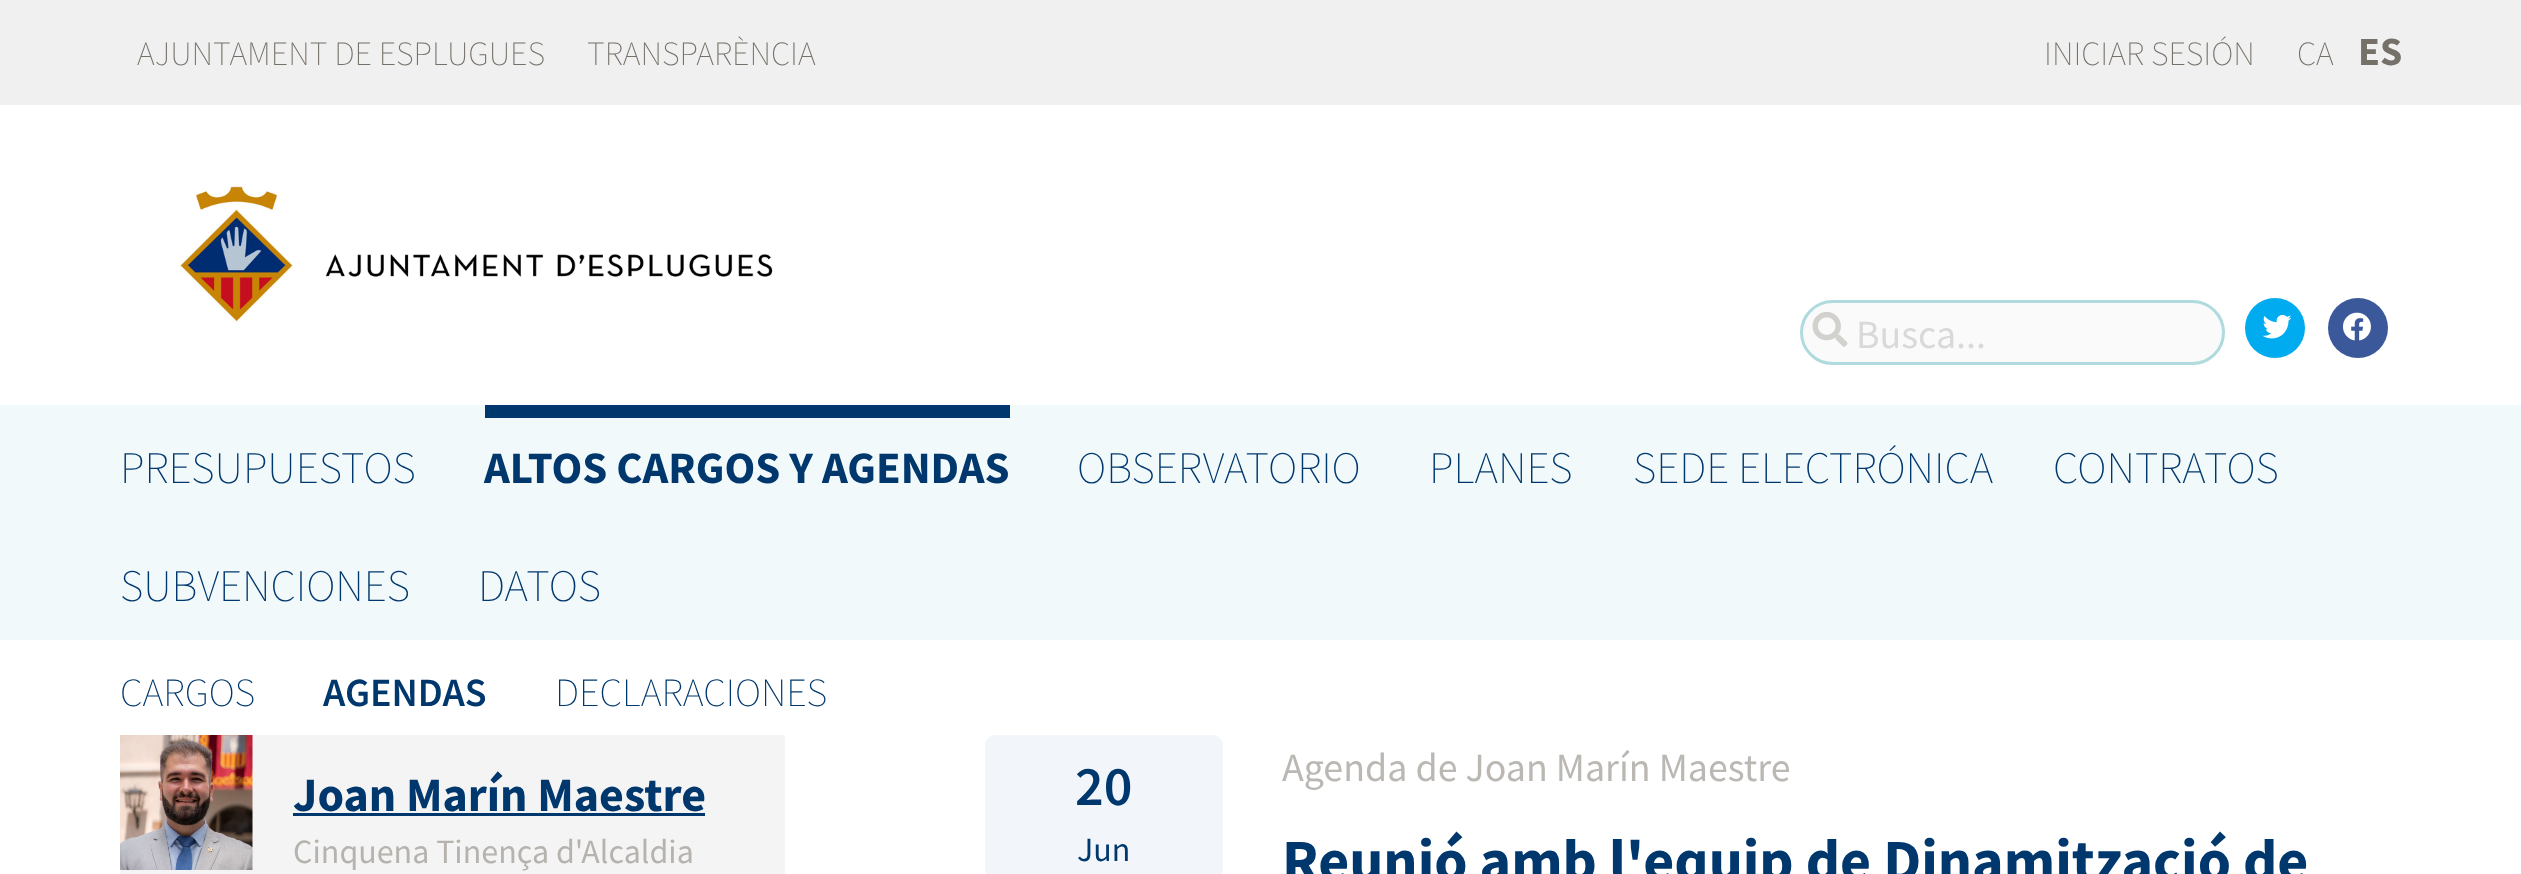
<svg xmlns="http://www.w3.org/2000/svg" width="2521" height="874">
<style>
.a{font:200 34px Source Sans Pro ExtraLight;fill:#767168}
.b{font:bold 40px Source Sans Pro;fill:#767168}
.c{font:40px Source Sans Pro;fill:#d9d9d9}
.d{font:200 45px Source Sans Pro ExtraLight;fill:#00386e}
.e{font:bold 45px Source Sans Pro;fill:#00386e}
.f{font:200 40px Source Sans Pro ExtraLight;fill:#00386e}
.g{font:600 40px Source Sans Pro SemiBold;fill:#00386e}
.h{font:bold 48px Source Sans Pro;fill:#00386e}
.i{font:34px Source Sans Pro;fill:#b6b3ae}
.j{font:600 56px Source Sans Pro SemiBold;fill:#00386e}
.k{font:34px Source Sans Pro;fill:#00386e}
.l{font:40px Source Sans Pro;fill:#bbb8b4}
.m{font:bold 60px Source Sans Pro;fill:#00386e}
</style>
<rect width="100%" height="100%" fill="#fff"/>
<path fill="#f0f0f0" d="M0 0h2521v105H0z"/>
<image href="1.png" x="180" y="186" width="593" height="136"/>
<rect fill="#fafafa" stroke="#afdade" stroke-width="3" x="1801.5" y="301.5" width="422" height="62" rx="31"/>
<image href="2.png" x="1812" y="311" width="36" height="36"/>
<circle fill="#00abef" cx="2275" cy="328" r="30"/>
<image href="3.png" x="2262" y="314" width="30" height="25"/>
<circle fill="#3a589a" cx="2358" cy="328" r="30"/>
<image href="4.png" x="2342" y="312" width="29" height="29"/>
<path fill="#f1f9fa" d="M0 405h2521v235H0z"/>
<path fill="#00386e" d="M485 405h525v13H485z"/>
<path fill="#f5f4f4" d="M120 735h665v139H120z"/>
<image href="5.png" x="120" y="735" width="133" height="135"/>
<path fill="#00386e" d="M293 813h412v3H293z"/>
<rect fill="#f2f6fb" x="985" y="735" width="238" height="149" rx="10"/>
<text class="a" x="137" y="65">AJUNTAMENT DE ESPLUGUES</text>
<text class="a" x="587" y="65">TRANSPARÈNCIA</text>
<text class="a" x="2044" y="65">INICIAR SESIÓN</text>
<text class="a" x="2297" y="65">CA</text>
<text class="b" x="2358" y="65">ES</text>
<text class="c" x="1856" y="348">Busca...</text>
<text class="d" x="120" y="483">PRESUPUESTOS</text>
<text class="e" x="484" y="483">ALTOS CARGOS Y AGENDAS</text>
<text class="d" x="1077" y="483">OBSERVATORIO</text>
<text class="d" x="1429" y="483">PLANES</text>
<text class="d" x="1633" y="483">SEDE ELECTRÓNICA</text>
<text class="d" x="2053" y="483">CONTRATOS</text>
<text class="d" x="120" y="601">SUBVENCIONES</text>
<text class="d" x="478" y="601">DATOS</text>
<text class="f" x="120" y="706">CARGOS</text>
<text class="g" x="323" y="706">AGENDAS</text>
<text class="f" x="555" y="706">DECLARACIONES</text>
<text class="h" x="293" y="811">Joan Marín Maestre</text>
<text class="i" x="293" y="863">Cinquena Tinença d'Alcaldia</text>
<text class="j" x="1075" y="805">20</text>
<text class="k" x="1077" y="861">Jun</text>
<text class="l" x="1282" y="781">Agenda de Joan Marín Maestre</text>
<text class="m" x="1282" y="881">Reunió amb l'equip de Dinamització de</text>
</svg>
